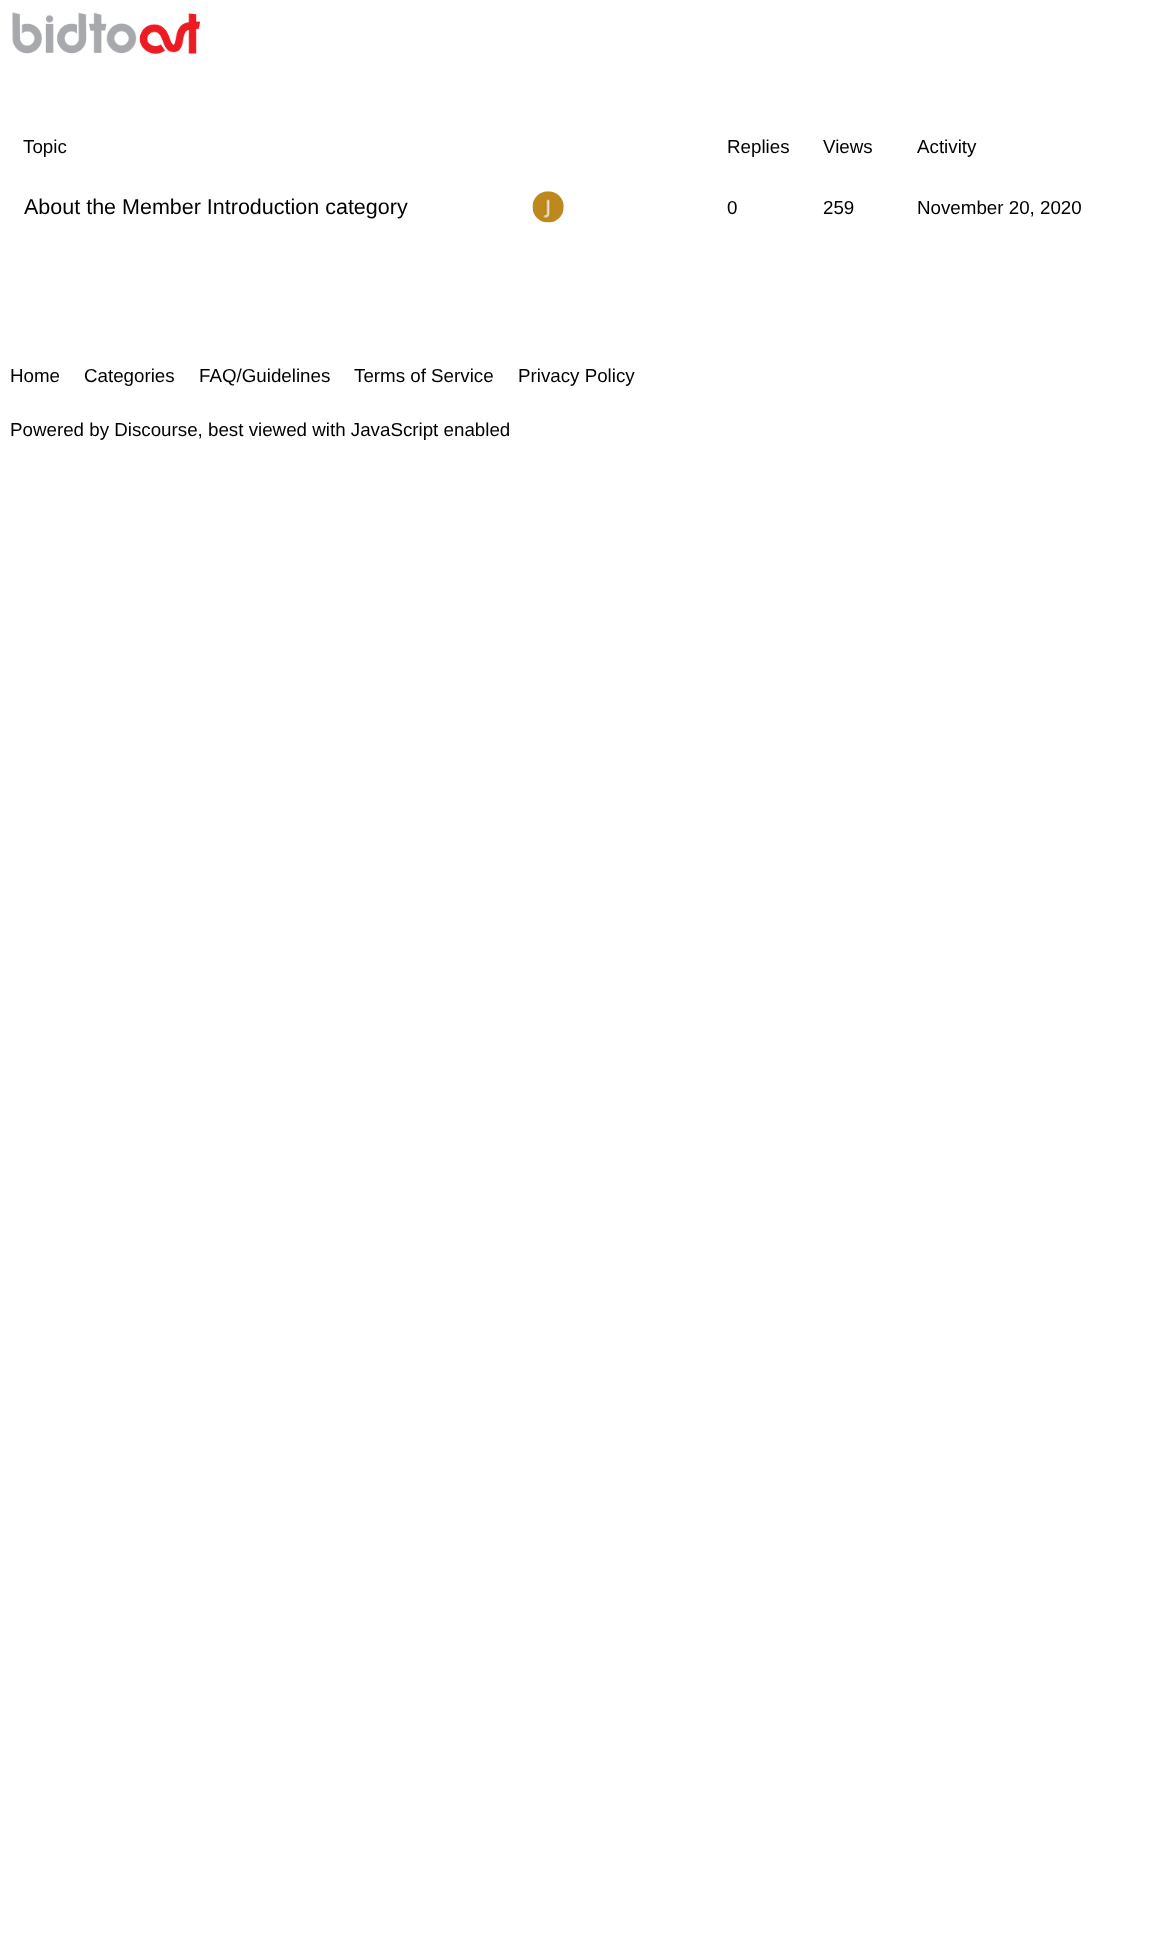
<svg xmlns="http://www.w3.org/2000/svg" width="1154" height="1957">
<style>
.a{font:18.75px Liberation Sans;fill:#000}
.b{font:21.5px Liberation Sans;fill:#000}
</style>
<rect width="100%" height="100%" fill="#fff"/>
<image href="1.png" x="12" y="12" width="188" height="42"/>
<image href="2.png" x="532" y="191" width="32" height="32"/>
<text class="a" x="23" y="153">Topic</text>
<text class="a" x="727" y="153">Replies</text>
<text class="a" x="823" y="153">Views</text>
<text class="a" x="917" y="153">Activity</text>
<text class="b" x="24" y="214">About the Member Introduction category</text>
<text class="a" x="727" y="214">0</text>
<text class="a" x="823" y="214">259</text>
<text class="a" x="917" y="214">November 20, 2020</text>
<text class="a" x="10" y="382">Home</text>
<text class="a" x="84" y="382">Categories</text>
<text class="a" x="199" y="382">FAQ/Guidelines</text>
<text class="a" x="354" y="382">Terms of Service</text>
<text class="a" x="518" y="382">Privacy Policy</text>
<text class="a" x="10" y="436">Powered by Discourse, best viewed with JavaScript enabled</text>
</svg>
